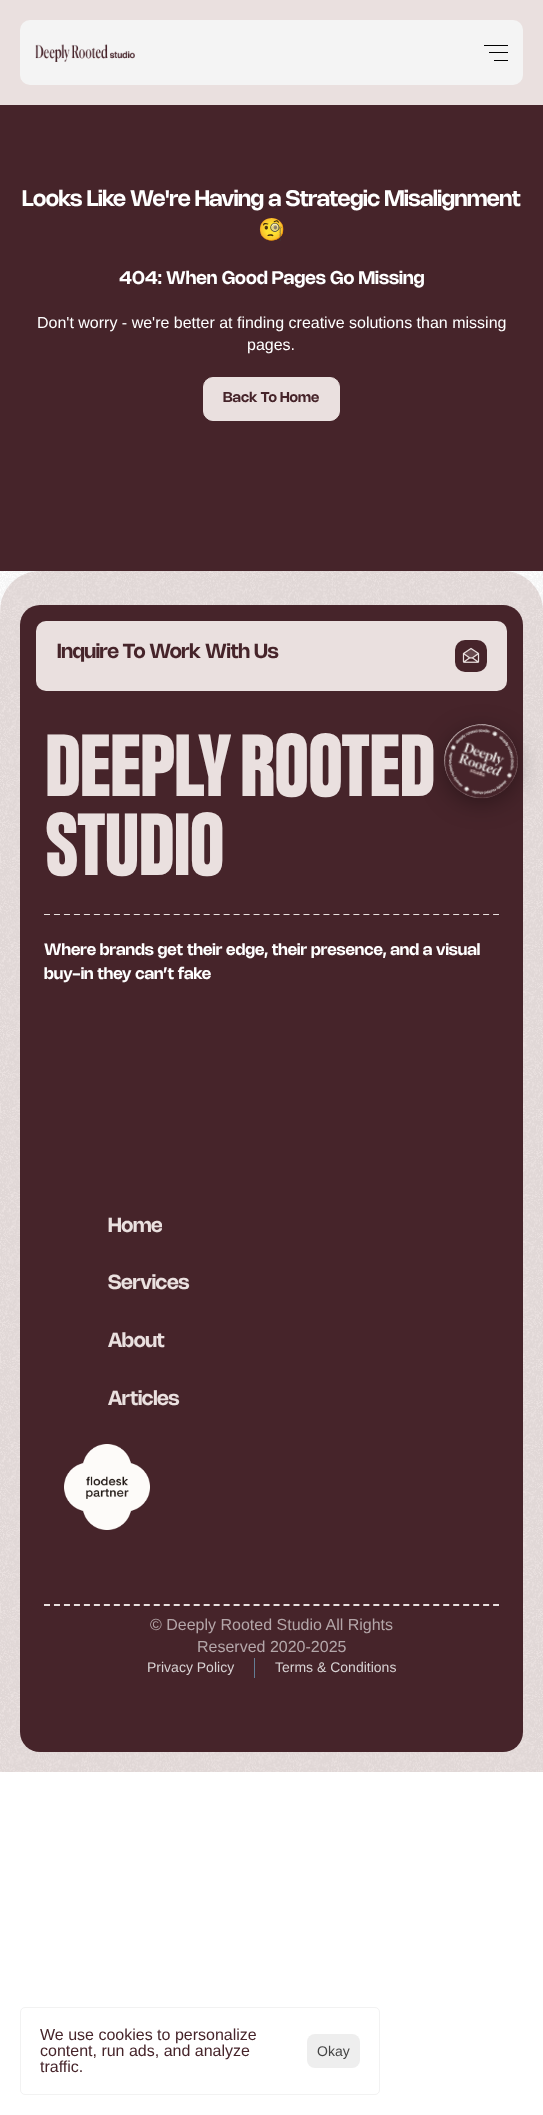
<svg xmlns="http://www.w3.org/2000/svg" width="543" height="2115">
<style>
.a{font:600 22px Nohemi;letter-spacing:-0.45px;fill:#fff}
.b{font:22px Noto Color Emoji;letter-spacing:-0.45px;fill:#fff}
.c{font:600 18px Nohemi;fill:#fff}
.d{font:16px Liberation Sans;fill:#fff}
.e{font:600 14px Nohemi;fill:#46242a}
.f{font:600 20px Nohemi;letter-spacing:-0.4px;fill:#46242a}
.g{font:bold 88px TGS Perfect;letter-spacing:-1.75px;fill:#eae0df}
.h{font:600 16px Nohemi;fill:#fff}
.i{font:600 20px Nohemi;letter-spacing:-0.4px;fill:#eae0df}
.j{font:16px Liberation Sans;fill:#b4a6a9}
.k{font:14px Liberation Sans;fill:#d8d2d3}
.l{font:16px Liberation Sans;fill:#46242a}
.m{font:14px Liberation Sans;fill:#444}
</style>
<defs>
<clipPath id="clip1"><path d="M44 914h455v1H44z"/></clipPath>
<clipPath id="clip2"><path d="M108 1208h54v42H108z"/></clipPath>
</defs>
<rect width="100%" height="100%" fill="#fff"/>
<path fill="#eae0df" d="M0 0h543v105H0z"/>
<rect fill="#f4f4f4" x="20" y="20" width="503" height="65" rx="10"/>
<image href="1.png" x="35" y="44" width="100" height="18"/>
<path fill="#000" d="M484 45h24v1H484z"/>
<path fill="#000" d="M489 52h19v1H489z"/>
<path fill="#000" d="M494 60h14v1H494z"/>
<path fill="#46242a" d="M0 105h543v466H0z"/>
<rect fill="#eae0df" stroke="#eae0df" x="203.5" y="377.5" width="136" height="43" rx="9.5"/>
<path fill="#eae0df" d="M40 571h463c22 0 40 18 40 40v1161h-543v-1161c0-22 18-40 40-40z"/>
<image href="2.png" x="0" y="571" width="543" height="1201"/>
<rect fill="#46242a" x="20" y="605" width="503" height="1147" rx="20"/>
<rect fill="#eae0df" x="36" y="621" width="471" height="70" rx="10"/>
<rect fill="#46242a" x="455" y="640" width="32" height="32" rx="10"/>
<image href="3.png" x="462" y="647" width="18" height="16"/>
<rect fill="#00000080" filter="blur(14.5px)" x="449" y="735" width="64" height="64" rx="32"/>
<path fill="#eae0df" d="M493 726c19 7 29 28 23 47c-7 19-28 30-47 23c-19-7-29-28-23-47c7-19 28-29 47-23z"/>
<image href="4.png" x="444" y="724" width="74" height="75"/>
<g clip-path="url(#clip1)">
<path fill="none" stroke="#eae0df" stroke-width="2" stroke-dasharray="6 3.98" d="M44 915h455"/>
</g>
<image href="5.png" x="64" y="1444" width="86" height="86"/>
<path fill="none" stroke="#eae0df" stroke-width="2" stroke-dasharray="6 3.98" d="M44 1605h455"/>
<path fill="#647d94" d="M254 1658h1v20H254z"/>
<rect fill="none" stroke="#f2f2f2" x="20.5" y="2007.5" width="359" height="87" rx="4.5"/>
<rect fill="#eee" x="307" y="2034" width="53" height="34" rx="8"/>
<text class="a" x="22" y="206">Looks Like We're Having a Strategic Misalignment</text>
<text class="b" x="258" y="237">🧐</text>
<text class="c" x="119" y="284">404: When Good Pages Go Missing</text>
<text class="d" x="37" y="328">Don't worry - we're better at finding creative solutions than missing</text>
<text class="d" x="247" y="350">pages.</text>
<text class="e" x="223" y="402">Back To Home</text>
<text class="f" x="57" y="658">Inquire To Work With Us</text>
<text class="g" x="44" y="796">DEEPLY ROOTED</text>
<text class="g" x="44" y="875">STUDIO</text>
<text class="h" x="44" y="955">Where brands get their edge, their presence, and a visual</text>
<text class="h" x="44" y="979">buy-in they can’t fake</text>
<g clip-path="url(#clip2)">
<text class="i" x="108" y="1232">Home</text>
</g>
<text class="i" x="108" y="1289">Services</text>
<text class="i" x="108" y="1347">About</text>
<text class="i" x="108" y="1405">Articles</text>
<text class="j" x="150" y="1630">© Deeply Rooted Studio All Rights</text>
<text class="j" x="197" y="1652">Reserved 2020-2025</text>
<text class="k" x="147" y="1672">Privacy Policy</text>
<text class="k" x="275" y="1672">Terms &amp; Conditions</text>
<text class="l" x="40" y="2040">We use cookies to personalize</text>
<text class="l" x="40" y="2056">content, run ads, and analyze</text>
<text class="l" x="40" y="2072">traffic.</text>
<text class="m" x="317" y="2056">Okay</text>
</svg>
